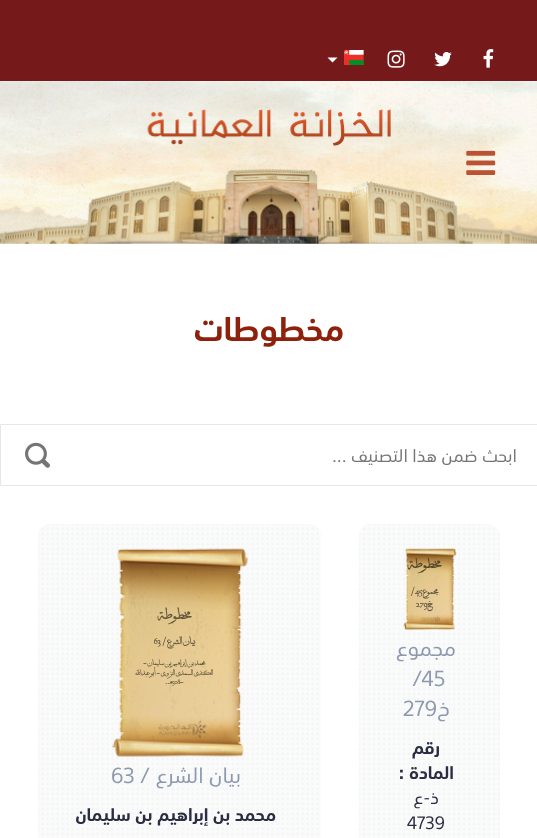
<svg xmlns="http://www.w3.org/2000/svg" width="537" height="838">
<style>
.a{font:bold 32.5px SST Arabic;direction:rtl;fill:#8e210c}
.b{font:17.5px SST Arabic;direction:rtl;fill:#757575}
.c{font:bold 15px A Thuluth;direction:rtl;fill:#56472b}
.d{font:bold 10px A Thuluth;direction:rtl;fill:#61553e}
.e{font:bold 10px A Thuluth;fill:#61553e}
.f{font:21.25px SST Arabic;direction:rtl;fill:#8d99ae}
.g{font:21.25px SST Arabic;fill:#8d99ae}
.h{font:bold 17.5px SST Arabic;direction:rtl;fill:#2b2d42}
.i{font:17.5px SST Arabic;direction:rtl;fill:#2b2d42}
.j{font:17.5px SST Arabic;fill:#2b2d42}
.k{font:bold 15px A Thuluth;direction:rtl;fill:#61553e}
.l{font:bold 7.5px A Thuluth;direction:rtl;fill:#61553e}
.m{font:bold 7.5px A Thuluth;fill:#61553e}
</style>
<defs>
<clipPath id="clip1"><path d="M406 558h45v18H406z"/></clipPath>
</defs>
<rect width="100%" height="100%" fill="#fff"/>
<path fill="#75191a" d="M0 0h537v81H0z"/>
<image href="1.png" x="483" y="49" width="11" height="19"/>
<image href="2.png" x="434" y="52" width="18" height="15"/>
<image href="3.png" x="387" y="50" width="18" height="18"/>
<image href="4.png" x="344" y="50" width="20" height="15"/>
<path fill="#fff" d="M327.5 57.5h10l-5 5z"/>
<image href="5.png" x="0" y="81" width="537" height="163"/>
<image href="6.png" x="466" y="150" width="30" height="25"/>
<path fill="none" stroke="#e4e7ed" d="M0.5 424.5h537v61H0.5z"/>
<image href="7.png" x="25" y="442" width="25" height="26"/>
<image href="8.png" x="359" y="524" width="141" height="314"/>
<image href="9.png" x="403" y="548" width="54" height="82"/>
<image href="10.png" x="38" y="524" width="283" height="314"/>
<image href="11.png" x="112" y="548" width="136" height="209"/>
<text class="a" x="344" y="341">مخطوطات</text>
<text class="b" x="517" y="462">ابحث ضمن هذا التصنيف ...</text>
<g clip-path="url(#clip1)">
<text class="c" x="441" y="568">مخطوطة</text>
</g>
<text class="d" x="438" y="594">مجموع</text>
<text class="e" x="411" y="594">/</text>
<text class="e" x="415" y="594">45</text>
<text class="d" x="433" y="607">خ</text>
<text class="e" x="416" y="607">279</text>
<text class="f" x="456" y="656">مجموع</text>
<text class="g" x="412" y="686">/45</text>
<text class="f" x="450" y="716">خ</text>
<text class="g" x="403" y="716">279</text>
<text class="h" x="440" y="754">رقم</text>
<text class="h" x="454" y="779">المادة :</text>
<text class="i" x="439" y="804">ذ-ع</text>
<text class="j" x="407" y="829">4739</text>
<text class="k" x="191" y="619">مخطوطة</text>
<text class="d" x="195" y="644">بيان الشرع /</text>
<text class="e" x="154" y="644">63</text>
<text class="l" x="205" y="665">محمد بن إبراهيم بن سليمان -</text>
<text class="l" x="213" y="675">الكندي السمدي النزوي - أبو عبدالله</text>
<text class="m" x="180" y="684">-</text>
<text class="l" x="172" y="684">هـ.</text>
<text class="m" x="172" y="684">508</text>
<text class="f" x="241" y="783">بيان الشرع /</text>
<text class="g" x="111" y="783">63</text>
<text class="h" x="276" y="821">محمد بن إبراهيم بن سليمان</text>
</svg>
